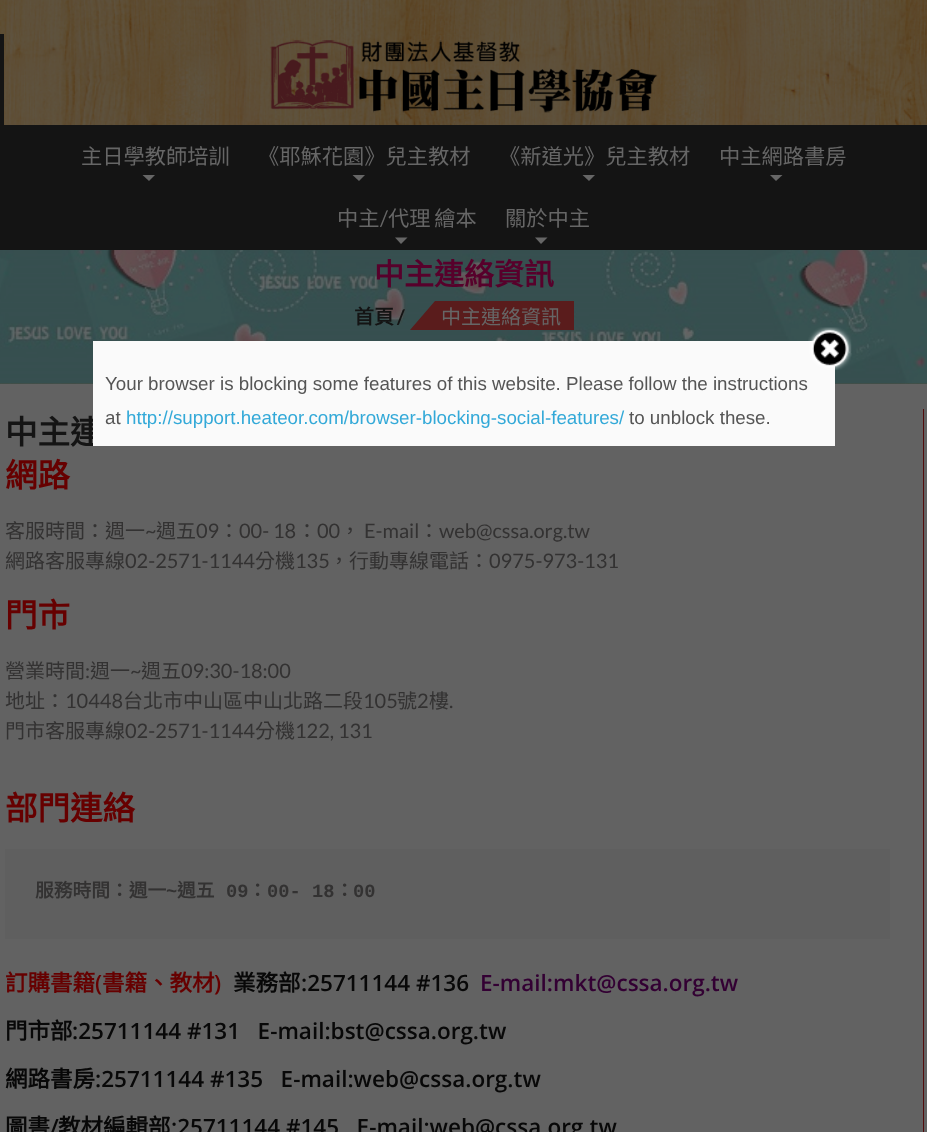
<svg xmlns="http://www.w3.org/2000/svg" width="927" height="1132">
<style>
.a{font:21.25px Noto Sans CJK TC;fill:#666}
.b{font:21.25px Lato;fill:#666}
.c{font:bold 30px Noto Sans CJK TC;fill:#57002b}
.d{font:bold 20px Noto Sans CJK TC;fill:#141414}
.e{font:bold 20px Lato;fill:#141414}
.f{font:20px Noto Sans CJK TC;fill:#666}
.g{font:bold 32.5px Noto Sans CJK TC;fill:#141414}
.h{font:bold 32.5px Noto Sans CJK TC;fill:#600}
.i{font:20px Noto Sans CJK TC;fill:#333232}
.j{font:20px Lato;fill:#333232}
.k{font:bold 18.75px Noto Sans CJK TC;fill:#333232}
.l{font:bold 18.75px Liberation Mono;fill:#333232}
.m{font:bold 22.5px Noto Sans CJK TC;fill:#600}
.n{font:600 22.5px Open Sans;fill:#600}
.o{font:bold 22.5px Noto Sans CJK TC;fill:#080808}
.p{font:600 22.5px Open Sans;fill:#080808}
.q{font:600 22.5px Open Sans;fill:#303}
.r{font:18.75px Liberation Sans;fill:#555}
.s{font:18.75px Liberation Sans;fill:#33a9d8}
</style>
<rect width="100%" height="100%" fill="#fff"/>
<image href="1.png" x="0" y="0" width="927" height="384"/>
<image href="2.png" x="270" y="40" width="388" height="73"/>
<path fill="#141414" d="M0 34h4v91H0z"/>
<path fill="#141414" d="M0 125h927v125H0z"/>
<path fill="#666" d="M142.5 175h12.5l-6 6z"/>
<path fill="#666" d="M352.5 175h12.5l-6 6z"/>
<path fill="#666" d="M582.5 175h12.5l-6 6z"/>
<path fill="#666" d="M770 175h12.5l-6.5 6z"/>
<path fill="#666" d="M395 237.5h12.5l-6.5 6.5z"/>
<path fill="#666" d="M535 237.5h12.5l-6.5 6.5z"/>
<image href="3.png" x="0" y="250" width="927" height="134"/>
<path fill="#5a1c1c" d="M435 301h139v29H435z"/>
<path fill="#5a1c1c" d="M435 301v29h-25z"/>
<path fill="#626262" d="M0 384h927v748H0z"/>
<path fill="#530c0c" d="M6 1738h918v-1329h-2v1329z"/>
<path fill="#626262" d="M922 409h1v723H922z"/>
<path fill="#5f5f5f" d="M5 849h885v90H5z"/>
<text class="a" x="81" y="164">主日學教師培訓</text>
<text class="a" x="258" y="164">《耶穌花園》兒主教材</text>
<text class="a" x="499" y="164">《新道光》兒主教材</text>
<text class="a" x="719" y="164">中主網路書房</text>
<text class="a" x="337" y="226">中主</text>
<text class="b" x="380" y="226">/</text>
<text class="a" x="388" y="226" word-spacing="-1">代理 繪本</text>
<text class="a" x="505" y="226">關於中主</text>
<text class="c" x="374" y="285">中主連絡資訊</text>
<text class="d" x="354" y="324">首頁</text>
<text class="e" x="397" y="324">/</text>
<text class="f" x="441" y="324">中主連絡資訊</text>
<text class="g" x="5" y="444">中主連</text>
<text class="h" x="5" y="487">網路</text>
<text class="i" x="5" y="538">客服時間：週一</text>
<text class="j" x="145" y="538">~</text>
<text class="i" x="156" y="538">週五</text>
<text class="j" x="196" y="538">09</text>
<text class="i" x="219" y="538">：</text>
<text class="j" x="239" y="538">00- 18</text>
<text class="i" x="297" y="538">：</text>
<text class="j" x="317" y="538">00</text>
<text class="i" x="340" y="538">，</text>
<text class="j" x="364" y="538">E-mail</text>
<text class="i" x="419" y="538">：</text>
<text class="j" x="439" y="538">web@cssa.org.tw</text>
<text class="i" x="5" y="568">網路客服專線</text>
<text class="j" x="125" y="568">02-2571-1144</text>
<text class="i" x="255" y="568">分機</text>
<text class="j" x="295" y="568">135</text>
<text class="i" x="329" y="568">，行動專線電話：</text>
<text class="j" x="489" y="568">0975-973-131</text>
<text class="h" x="5" y="627">門市</text>
<text class="i" x="5" y="678">營業時間</text>
<text class="j" x="85" y="678">:</text>
<text class="i" x="90" y="678">週一</text>
<text class="j" x="130" y="678">~</text>
<text class="i" x="141" y="678">週五</text>
<text class="j" x="181" y="678">09:30-18:00</text>
<text class="i" x="5" y="708">地址：</text>
<text class="j" x="65" y="708">10448</text>
<text class="i" x="123" y="708">台北市中山區中山北路二段</text>
<text class="j" x="363" y="708">105</text>
<text class="i" x="397" y="708">號</text>
<text class="j" x="417" y="708">2</text>
<text class="i" x="429" y="708">樓</text>
<text class="j" x="449" y="708">.</text>
<text class="i" x="5" y="738">門市客服專線</text>
<text class="j" x="125" y="738">02-2571-1144</text>
<text class="i" x="255" y="738">分機</text>
<text class="j" x="295" y="738">122, 131</text>
<text class="h" x="5" y="820">部門連絡</text>
<text class="k" x="35" y="897">服務時間：週一</text>
<text class="l" x="166" y="897">~</text>
<text class="k" x="177" y="897">週五</text>
<text class="l" x="226" y="897">09</text>
<text class="k" x="248" y="897">：</text>
<text class="l" x="267" y="897">00- 18</text>
<text class="k" x="335" y="897">：</text>
<text class="l" x="353" y="897">00</text>
<text class="m" x="5" y="991">訂購書籍</text>
<text class="n" x="95" y="991">(</text>
<text class="m" x="102" y="991">書籍、教材</text>
<text class="n" x="214" y="991">)</text>
<text class="o" x="233" y="991">業務部</text>
<text class="p" x="301" y="991">:25711144 #136</text>
<text class="q" x="480" y="991">E-mail:mkt@cssa.org.tw</text>
<text class="o" x="5" y="1039">門市部</text>
<text class="p" xml:space="preserve" x="72" y="1039">:25711144 #131   E-mail:bst@cssa.org.tw</text>
<text class="o" x="5" y="1087">網路書房</text>
<text class="p" xml:space="preserve" x="95" y="1087">:25711144 #135   E-mail:web@cssa.org.tw</text>
<text class="o" x="5" y="1135">圖書</text>
<text class="p" x="50" y="1135">/</text>
<text class="o" x="58" y="1135">教材編輯部</text>
<text class="p" xml:space="preserve" x="171" y="1135">:25711144 #145   E-mail:web@cssa.org.tw</text>
<path fill="#fafafa" d="M93 341h742v105H93z"/>
<image href="4.png" x="808" y="327" width="44" height="43"/>
<text class="r" x="105" y="390">Your browser is blocking some features of this website. Please follow the instructions</text>
<text class="r" x="105" y="424">at</text>
<text class="s" x="126" y="424">http://support.heateor.com/browser-blocking-social-features/</text>
<text class="r" x="629" y="424">to unblock these.</text>
</svg>
